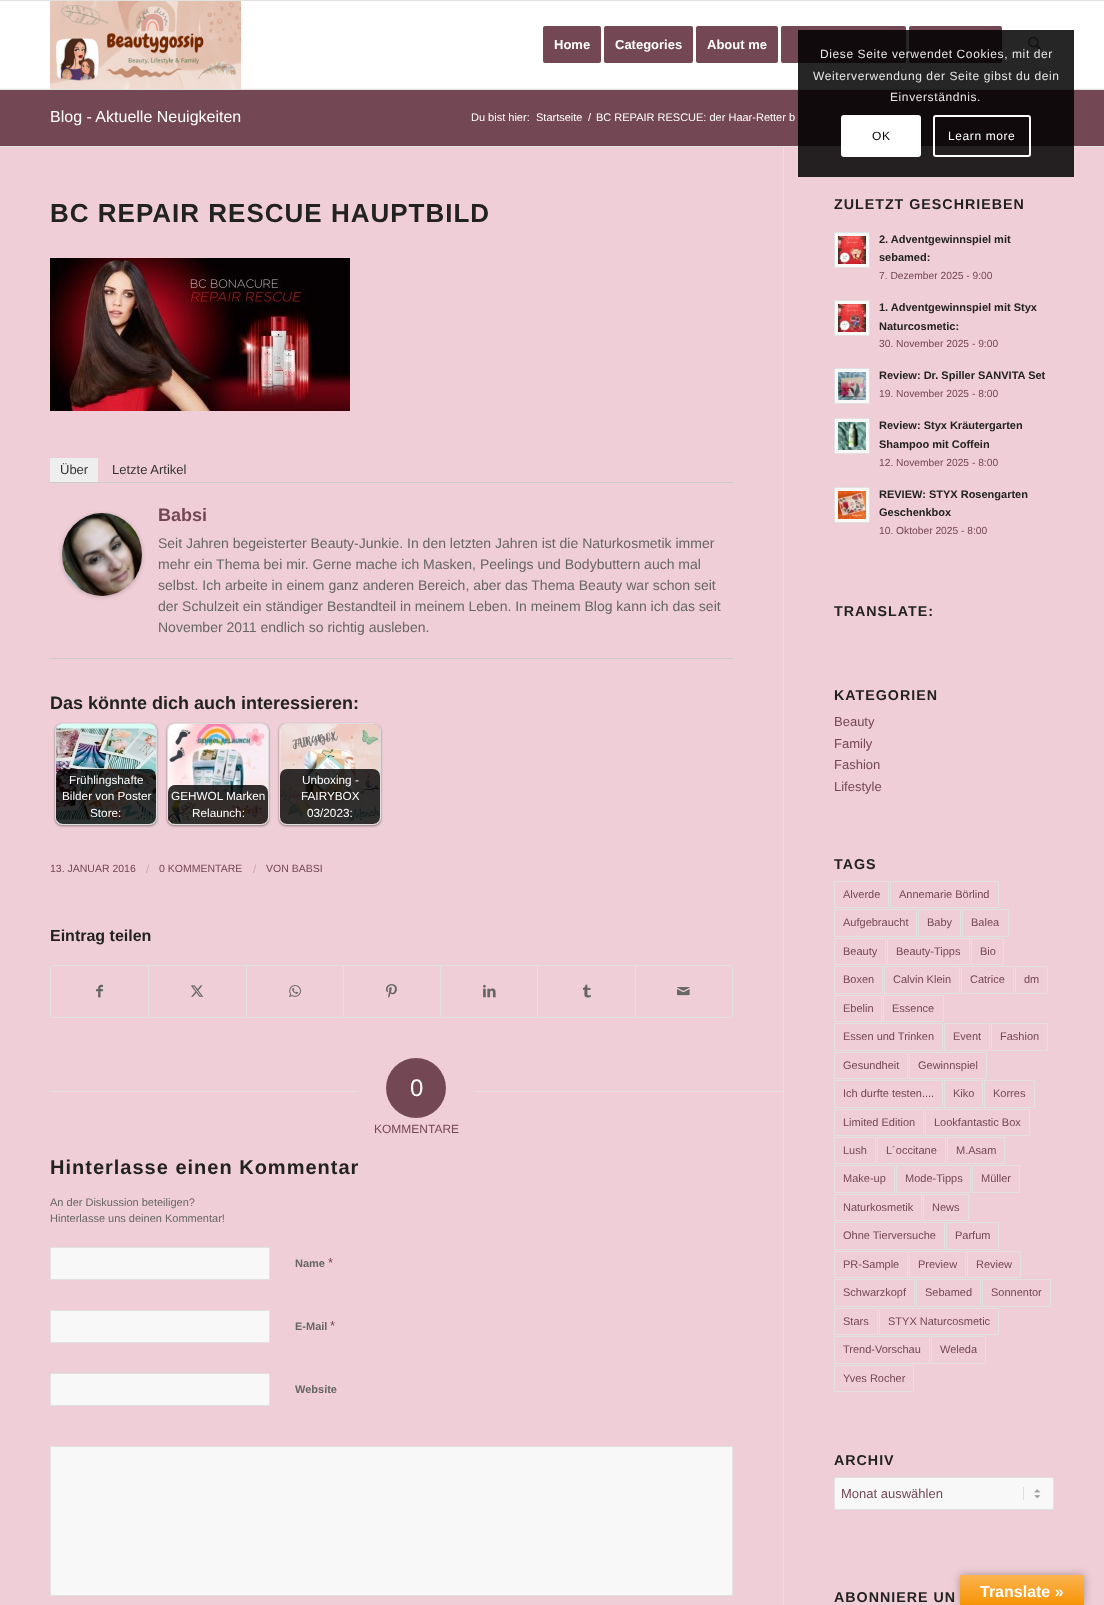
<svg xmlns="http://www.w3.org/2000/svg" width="1104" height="1605">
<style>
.a{font:bold 13px Liberation Sans;fill:#fff}
.b{font:16px Liberation Sans;fill:#fff}
.c{font:11px Liberation Sans;fill:#fff}
.d{font:bold 26px Liberation Sans;letter-spacing:1px;fill:#222}
.e{font:13px Liberation Sans;fill:#333}
.f{font:bold 18px Liberation Sans;fill:#734854}
.g{font:14px Liberation Sans;fill:#666}
.h{font:bold 18px Liberation Sans;fill:#222}
.i{font:11.75px Liberation Sans;fill:#fff}
.j{font:10.5px Liberation Sans;fill:#734854}
.k{font:11.75px Liberation Sans;fill:#cba6b0}
.l{font:bold 16px Liberation Sans;fill:#222}
.m{font:24px Liberation Sans;fill:#fff}
.n{font:12px Liberation Sans;fill:#734854}
.o{font:bold 20px Liberation Sans;letter-spacing:1px;fill:#222}
.p{font:11px Liberation Sans;fill:#666}
.q{font:bold 11px Liberation Sans;fill:#666}
.r{font:13px Liberation Sans;fill:#734854}
.s{font:bold 14.25px Liberation Sans;letter-spacing:1px;fill:#222}
.t{font:bold 11px Liberation Sans;fill:#222}
.u{font:10.25px Liberation Sans;fill:#734854}
.v{font:11px Liberation Sans;fill:#734854}
.w{font:12px Liberation Sans;letter-spacing:0.6px;fill:#e8e7e7}
.x{font:12px Liberation Sans;letter-spacing:0.6px;fill:#000}
.y{font:12px Liberation Sans;letter-spacing:0.6px;fill:#fff}
.z{font:bold 16px Liberation Sans;fill:#fff}
</style>
<defs>
<clipPath id="clip1"><rect x="56" y="724" width="100" height="100" rx="6"/></clipPath>
<clipPath id="clip2"><rect x="168" y="724" width="100" height="100" rx="6"/></clipPath>
<clipPath id="clip3"><rect x="280" y="724" width="100" height="100" rx="6"/></clipPath>
<linearGradient id="g1" gradientUnits="userSpaceOnUse" x1="1022" y1="1575" x2="1022" y2="1605"><stop offset="0" stop-color="#fbb450"/><stop offset="1" stop-color="#f89406"/></linearGradient>
</defs>
<rect width="100%" height="100%" fill="#fff"/>
<path fill="#e1e1e1" d="M0 0h1104v1H0z"/>
<path fill="#e1e1e1" d="M0 89h1104v1H0z"/>
<path fill="#f9f8f8" d="M0 88h1104v1H0z"/>
<image href="1.png" x="50" y="1" width="191" height="88"/>
<rect fill="#734854" stroke="#734854" stroke-width="2" x="544" y="27" width="56" height="35" rx="1"/>
<rect fill="#734854" stroke="#734854" stroke-width="2" x="605" y="27" width="87" height="35" rx="1"/>
<rect fill="#734854" stroke="#734854" stroke-width="2" x="697" y="27" width="80" height="35" rx="1"/>
<rect fill="#734854" stroke="#734854" stroke-width="2" x="782" y="27" width="123" height="35" rx="1"/>
<rect fill="#734854" stroke="#734854" stroke-width="2" x="910" y="27" width="91" height="35" rx="1"/>
<image href="2.png" x="1028" y="36" width="13" height="15"/>
<path fill="#734854" d="M0 90h1104v56H0z"/>
<path fill="#f0ced8" d="M0 147h1104v1458H0z"/>
<path fill="#e1e1e1" d="M0 146h1104v1H0z"/>
<path fill="#e1e1e1" d="M783 147h1v1458H783z"/>
<image href="3.png" x="50" y="258" width="300" height="153"/>
<path fill="#ccc" d="M50 482h683v1H50z"/>
<path fill="#eee" d="M50 458h48v24H50z"/>
<path fill="#ccc" d="M50 658h683v1H50z"/>
<rect fill="#00000033" filter="blur(2px)" x="62" y="514" width="80" height="83" rx="40"/>
<image href="4.png" x="62" y="513" width="80" height="83"/>
<rect fill="#00000066" filter="blur(1px)" x="55" y="724" width="102" height="102" rx="7"/>
<rect fill="none" stroke="#ddd" x="55.5" y="723.5" width="101" height="101" rx="6.5"/>
<image href="5.png" x="56" y="724" width="100" height="100"/>
<g clip-path="url(#clip1)">
<rect fill="#000000cc" x="56" y="769" width="100" height="55" rx="7"/>
</g>
<rect fill="#00000066" filter="blur(1px)" x="167" y="724" width="102" height="102" rx="7"/>
<rect fill="none" stroke="#ddd" x="167.5" y="723.5" width="101" height="101" rx="6.5"/>
<image href="6.png" x="168" y="724" width="100" height="100"/>
<g clip-path="url(#clip2)">
<rect fill="#000000cc" x="168" y="785" width="100" height="39" rx="7"/>
</g>
<rect fill="#00000066" filter="blur(1px)" x="279" y="724" width="102" height="102" rx="7"/>
<rect fill="none" stroke="#ddd" x="279.5" y="723.5" width="101" height="101" rx="6.5"/>
<image href="7.png" x="280" y="724" width="100" height="100"/>
<g clip-path="url(#clip3)">
<rect fill="#000000cc" x="280" y="769" width="100" height="55" rx="7"/>
</g>
<rect fill="none" stroke="#e1e1e1" x="50.5" y="965.5" width="682" height="52" rx="2.5"/>
<image href="8.png" x="96" y="984" width="7" height="14"/>
<path fill="#e1e1e1" d="M148 966h1v51H148z"/>
<image href="9.png" x="190" y="985" width="14" height="12"/>
<path fill="#e1e1e1" d="M246 966h1v51H246z"/>
<image href="10.png" x="289" y="985" width="12" height="13"/>
<path fill="#e1e1e1" d="M343 966h1v51H343z"/>
<image href="11.png" x="386" y="984" width="11" height="14"/>
<path fill="#e1e1e1" d="M440 966h1v51H440z"/>
<image href="12.png" x="483" y="984" width="13" height="14"/>
<path fill="#e1e1e1" d="M537 966h1v51H537z"/>
<image href="13.png" x="583" y="984" width="8" height="14"/>
<path fill="#e1e1e1" d="M635 966h1v51H635z"/>
<image href="14.png" x="677" y="987" width="13" height="9"/>
<path fill="#e1e1e1" d="M50 1091h308v1H50z"/>
<circle fill="#734854" cx="416" cy="1088" r="30"/>
<path fill="#e1e1e1" d="M475 1091h308v1H475z"/>
<path fill="#f8f8f8" stroke="#e1e1e1" d="M50.5 1247.5h219v32H50.5z"/>
<path fill="#f8f8f8" stroke="#e1e1e1" d="M50.5 1310.5h219v32H50.5z"/>
<path fill="#f8f8f8" stroke="#e1e1e1" d="M50.5 1373.5h219v32H50.5z"/>
<path fill="#f8f8f8" stroke="#e1e1e1" d="M50.5 1446.5h682v149H50.5z"/>
<path fill="#f8f8f8" stroke="#e1e1e1" d="M834.5 232.5h35v35H834.5z"/>
<image href="15.png" x="838" y="236" width="28" height="28"/>
<path fill="#f8f8f8" stroke="#e1e1e1" d="M834.5 300.5h35v35H834.5z"/>
<image href="16.png" x="838" y="304" width="28" height="28"/>
<path fill="#f8f8f8" stroke="#e1e1e1" d="M834.5 368.5h35v35H834.5z"/>
<image href="17.png" x="838" y="372" width="28" height="28"/>
<path fill="#f8f8f8" stroke="#e1e1e1" d="M834.5 418.5h35v35H834.5z"/>
<image href="18.png" x="838" y="422" width="28" height="28"/>
<path fill="#f8f8f8" stroke="#e1e1e1" d="M834.5 487.5h35v35H834.5z"/>
<image href="19.png" x="838" y="491" width="28" height="28"/>
<path fill="none" stroke="#e1e1e1" d="M834.5 881.5h54v26H834.5z"/>
<path fill="none" stroke="#e1e1e1" d="M890.5 881.5h108v26H890.5z"/>
<path fill="none" stroke="#e1e1e1" d="M834.5 909.5h82v27H834.5z"/>
<path fill="none" stroke="#e1e1e1" d="M918.5 909.5h42v27H918.5z"/>
<path fill="none" stroke="#e1e1e1" d="M962.5 909.5h46v27H962.5z"/>
<path fill="none" stroke="#e1e1e1" d="M834.5 938.5h51v26H834.5z"/>
<path fill="none" stroke="#e1e1e1" d="M887.5 938.5h82v26H887.5z"/>
<path fill="none" stroke="#e1e1e1" d="M971.5 938.5h32v26H971.5z"/>
<path fill="none" stroke="#e1e1e1" d="M834.5 966.5h48v27H834.5z"/>
<path fill="none" stroke="#e1e1e1" d="M884.5 966.5h75v27H884.5z"/>
<path fill="none" stroke="#e1e1e1" d="M961.5 966.5h52v27H961.5z"/>
<path fill="none" stroke="#e1e1e1" d="M1015.5 966.5h32v27H1015.5z"/>
<path fill="none" stroke="#e1e1e1" d="M834.5 995.5h47v26H834.5z"/>
<path fill="none" stroke="#e1e1e1" d="M883.5 995.5h60v26H883.5z"/>
<path fill="none" stroke="#e1e1e1" d="M834.5 1023.5h108v27H834.5z"/>
<path fill="none" stroke="#e1e1e1" d="M944.5 1023.5h45v27H944.5z"/>
<path fill="none" stroke="#e1e1e1" d="M991.5 1023.5h56v27H991.5z"/>
<path fill="none" stroke="#e1e1e1" d="M834.5 1052.5h73v26H834.5z"/>
<path fill="none" stroke="#e1e1e1" d="M909.5 1052.5h77v26H909.5z"/>
<path fill="none" stroke="#e1e1e1" d="M834.5 1080.5h108v27H834.5z"/>
<path fill="none" stroke="#e1e1e1" d="M944.5 1080.5h38v27H944.5z"/>
<path fill="none" stroke="#e1e1e1" d="M984.5 1080.5h50v27H984.5z"/>
<path fill="none" stroke="#e1e1e1" d="M834.5 1109.5h89v26H834.5z"/>
<path fill="none" stroke="#e1e1e1" d="M925.5 1109.5h104v26H925.5z"/>
<path fill="none" stroke="#e1e1e1" d="M834.5 1137.5h41v26H834.5z"/>
<path fill="none" stroke="#e1e1e1" d="M877.5 1137.5h68v26H877.5z"/>
<path fill="none" stroke="#e1e1e1" d="M947.5 1137.5h57v26H947.5z"/>
<path fill="none" stroke="#e1e1e1" d="M834.5 1165.5h60v27H834.5z"/>
<path fill="none" stroke="#e1e1e1" d="M896.5 1165.5h74v27H896.5z"/>
<path fill="none" stroke="#e1e1e1" d="M972.5 1165.5h47v27H972.5z"/>
<path fill="none" stroke="#e1e1e1" d="M834.5 1194.5h87v26H834.5z"/>
<path fill="none" stroke="#e1e1e1" d="M923.5 1194.5h45v26H923.5z"/>
<path fill="none" stroke="#e1e1e1" d="M834.5 1222.5h110v27H834.5z"/>
<path fill="none" stroke="#e1e1e1" d="M946.5 1222.5h52v27H946.5z"/>
<path fill="none" stroke="#e1e1e1" d="M834.5 1251.5h73v26H834.5z"/>
<path fill="none" stroke="#e1e1e1" d="M909.5 1251.5h56v26H909.5z"/>
<path fill="none" stroke="#e1e1e1" d="M967.5 1251.5h53v26H967.5z"/>
<path fill="none" stroke="#e1e1e1" d="M834.5 1279.5h80v27H834.5z"/>
<path fill="none" stroke="#e1e1e1" d="M916.5 1279.5h64v27H916.5z"/>
<path fill="none" stroke="#e1e1e1" d="M982.5 1279.5h68v27H982.5z"/>
<path fill="none" stroke="#e1e1e1" d="M834.5 1308.5h43v26H834.5z"/>
<path fill="none" stroke="#e1e1e1" d="M879.5 1308.5h119v26H879.5z"/>
<path fill="none" stroke="#e1e1e1" d="M834.5 1336.5h95v27H834.5z"/>
<path fill="none" stroke="#e1e1e1" d="M931.5 1336.5h54v27H931.5z"/>
<path fill="none" stroke="#e1e1e1" d="M834.5 1365.5h79v26H834.5z"/>
<rect fill="#f8f8f8" x="834" y="1477" width="220" height="33" rx="2"/>
<image href="20.png" x="1023" y="1487" width="18" height="13"/>
<rect fill="none" stroke="#e1e1e1" x="834.5" y="1477.5" width="219" height="32" rx="1.5"/>
<path fill="#000000d9" d="M798 30h276v147H798z"/>
<rect fill="#fff" x="841" y="115" width="80" height="42" rx="3"/>
<rect fill="none" stroke="#fff" stroke-width="2" x="934" y="116" width="96" height="40" rx="2"/>
<path fill="#0000004d" filter="blur(4.5px)" d="M960 1575h124v30H960z"/>
<path fill="url(#g1)" d="M960 1575h124v30H960z"/>
<text class="a" x="554" y="49">Home</text>
<text class="a" x="615" y="49">Categories</text>
<text class="a" x="707" y="49">About me</text>
<text class="b" x="50" y="122">Blog - Aktuelle Neuigkeiten</text>
<text class="c" x="471" y="121">Du bist hier:</text>
<text class="c" x="536" y="121">Startseite</text>
<text class="c" x="588" y="121">/</text>
<text class="c" x="596" y="121">BC REPAIR RESCUE: der Haar-Retter b</text>
<text class="d" x="50" y="222">BC REPAIR RESCUE HAUPTBILD</text>
<text class="e" x="60" y="474">Über</text>
<text class="e" x="112" y="474">Letzte Artikel</text>
<text class="f" x="158" y="521">Babsi</text>
<text class="g" x="158" y="548">Seit Jahren begeisterter Beauty-Junkie. In den letzten Jahren ist die Naturkosmetik immer</text>
<text class="g" x="158" y="569">mehr ein Thema bei mir. Gerne mache ich Masken, Peelings und Bodybuttern auch mal</text>
<text class="g" x="158" y="590">selbst. Ich arbeite in einem ganz anderen Bereich, aber das Thema Beauty war schon seit</text>
<text class="g" x="158" y="611">der Schulzeit ein ständiger Bestandteil in meinem Leben. In meinem Blog kann ich das seit</text>
<text class="g" x="158" y="632">November 2011 endlich so richtig ausleben.</text>
<text class="h" x="50" y="709">Das könnte dich auch interessieren:</text>
<text class="i" x="69" y="784">Frühlingshafte</text>
<text class="i" x="62" y="800">Bilder von Poster</text>
<text class="i" x="90" y="817">Store:</text>
<text class="i" x="171" y="800">GEHWOL Marken</text>
<text class="i" x="192" y="817">Relaunch:</text>
<text class="i" x="302" y="784">Unboxing -</text>
<text class="i" x="301" y="800">FAIRYBOX</text>
<text class="i" x="307" y="817">03/2023:</text>
<text class="j" x="50" y="872">13. JANUAR 2016</text>
<text class="k" x="146" y="873">/</text>
<text class="j" x="159" y="872">0 KOMMENTARE</text>
<text class="k" x="253" y="873">/</text>
<text class="j" x="266" y="872">VON BABSI</text>
<text class="l" x="50" y="941">Eintrag teilen</text>
<text class="m" x="410" y="1096">0</text>
<text class="n" x="374" y="1133">KOMMENTARE</text>
<text class="o" x="50" y="1174">Hinterlasse einen Kommentar</text>
<text class="p" x="50" y="1206">An der Diskussion beteiligen?</text>
<text class="p" x="50" y="1222">Hinterlasse uns deinen Kommentar!</text>
<text class="q" x="295" y="1267">Name</text>
<text class="r" x="328" y="1267">*</text>
<text class="q" x="295" y="1330">E-Mail</text>
<text class="r" x="330" y="1330">*</text>
<text class="q" x="295" y="1393">Website</text>
<text class="s" x="834" y="209">ZULETZT GESCHRIEBEN</text>
<text class="t" x="879" y="243">2. Adventgewinnspiel mit</text>
<text class="t" x="879" y="261">sebamed:</text>
<text class="u" x="879" y="279">7. Dezember 2025 - 9:00</text>
<text class="t" x="879" y="311">1. Adventgewinnspiel mit Styx</text>
<text class="t" x="879" y="330">Naturcosmetic:</text>
<text class="u" x="879" y="347">30. November 2025 - 9:00</text>
<text class="t" x="879" y="379">Review: Dr. Spiller SANVITA Set</text>
<text class="u" x="879" y="397">19. November 2025 - 8:00</text>
<text class="t" x="879" y="429">Review: Styx Kräutergarten</text>
<text class="t" x="879" y="448">Shampoo mit Coffein</text>
<text class="u" x="879" y="466">12. November 2025 - 8:00</text>
<text class="t" x="879" y="498">REVIEW: STYX Rosengarten</text>
<text class="t" x="879" y="516">Geschenkbox</text>
<text class="u" x="879" y="534">10. Oktober 2025 - 8:00</text>
<text class="s" x="834" y="616">TRANSLATE:</text>
<text class="s" x="834" y="700">KATEGORIEN</text>
<text class="r" x="834" y="726">Beauty</text>
<text class="r" x="834" y="748">Family</text>
<text class="r" x="834" y="769">Fashion</text>
<text class="r" x="834" y="791">Lifestyle</text>
<text class="s" x="834" y="869">TAGS</text>
<text class="v" x="843" y="898">Alverde</text>
<text class="v" x="899" y="898">Annemarie Börlind</text>
<text class="v" x="843" y="926">Aufgebraucht</text>
<text class="v" x="927" y="926">Baby</text>
<text class="v" x="971" y="926">Balea</text>
<text class="v" x="843" y="955">Beauty</text>
<text class="v" x="896" y="955">Beauty-Tipps</text>
<text class="v" x="980" y="955">Bio</text>
<text class="v" x="843" y="983">Boxen</text>
<text class="v" x="893" y="983">Calvin Klein</text>
<text class="v" x="970" y="983">Catrice</text>
<text class="v" x="1024" y="983">dm</text>
<text class="v" x="843" y="1012">Ebelin</text>
<text class="v" x="892" y="1012">Essence</text>
<text class="v" x="843" y="1040">Essen und Trinken</text>
<text class="v" x="953" y="1040">Event</text>
<text class="v" x="1000" y="1040">Fashion</text>
<text class="v" x="843" y="1069">Gesundheit</text>
<text class="v" x="918" y="1069">Gewinnspiel</text>
<text class="v" x="843" y="1097">Ich durfte testen....</text>
<text class="v" x="953" y="1097">Kiko</text>
<text class="v" x="993" y="1097">Korres</text>
<text class="v" x="843" y="1126">Limited Edition</text>
<text class="v" x="934" y="1126">Lookfantastic Box</text>
<text class="v" x="843" y="1154">Lush</text>
<text class="v" x="886" y="1154">L´occitane</text>
<text class="v" x="956" y="1154">M.Asam</text>
<text class="v" x="843" y="1182">Make-up</text>
<text class="v" x="905" y="1182">Mode-Tipps</text>
<text class="v" x="981" y="1182">Müller</text>
<text class="v" x="843" y="1211">Naturkosmetik</text>
<text class="v" x="932" y="1211">News</text>
<text class="v" x="843" y="1239">Ohne Tierversuche</text>
<text class="v" x="955" y="1239">Parfum</text>
<text class="v" x="843" y="1268">PR-Sample</text>
<text class="v" x="918" y="1268">Preview</text>
<text class="v" x="976" y="1268">Review</text>
<text class="v" x="843" y="1296">Schwarzkopf</text>
<text class="v" x="925" y="1296">Sebamed</text>
<text class="v" x="991" y="1296">Sonnentor</text>
<text class="v" x="843" y="1325">Stars</text>
<text class="v" x="888" y="1325">STYX Naturcosmetic</text>
<text class="v" x="843" y="1353">Trend-Vorschau</text>
<text class="v" x="940" y="1353">Weleda</text>
<text class="v" x="843" y="1382">Yves Rocher</text>
<text class="s" x="834" y="1465">ARCHIV</text>
<text class="r" x="841" y="1498">Monat auswählen</text>
<text class="s" x="834" y="1602">ABONNIERE UN</text>
<text class="w" x="820" y="58">Diese Seite verwendet Cookies, mit der</text>
<text class="w" x="813" y="80">Weiterverwendung der Seite gibst du dein</text>
<text class="w" x="890" y="101">Einverständnis.</text>
<text class="x" x="872" y="140">OK</text>
<text class="y" x="948" y="140">Learn more</text>
<text class="z" x="980" y="1597">Translate »</text>
</svg>
